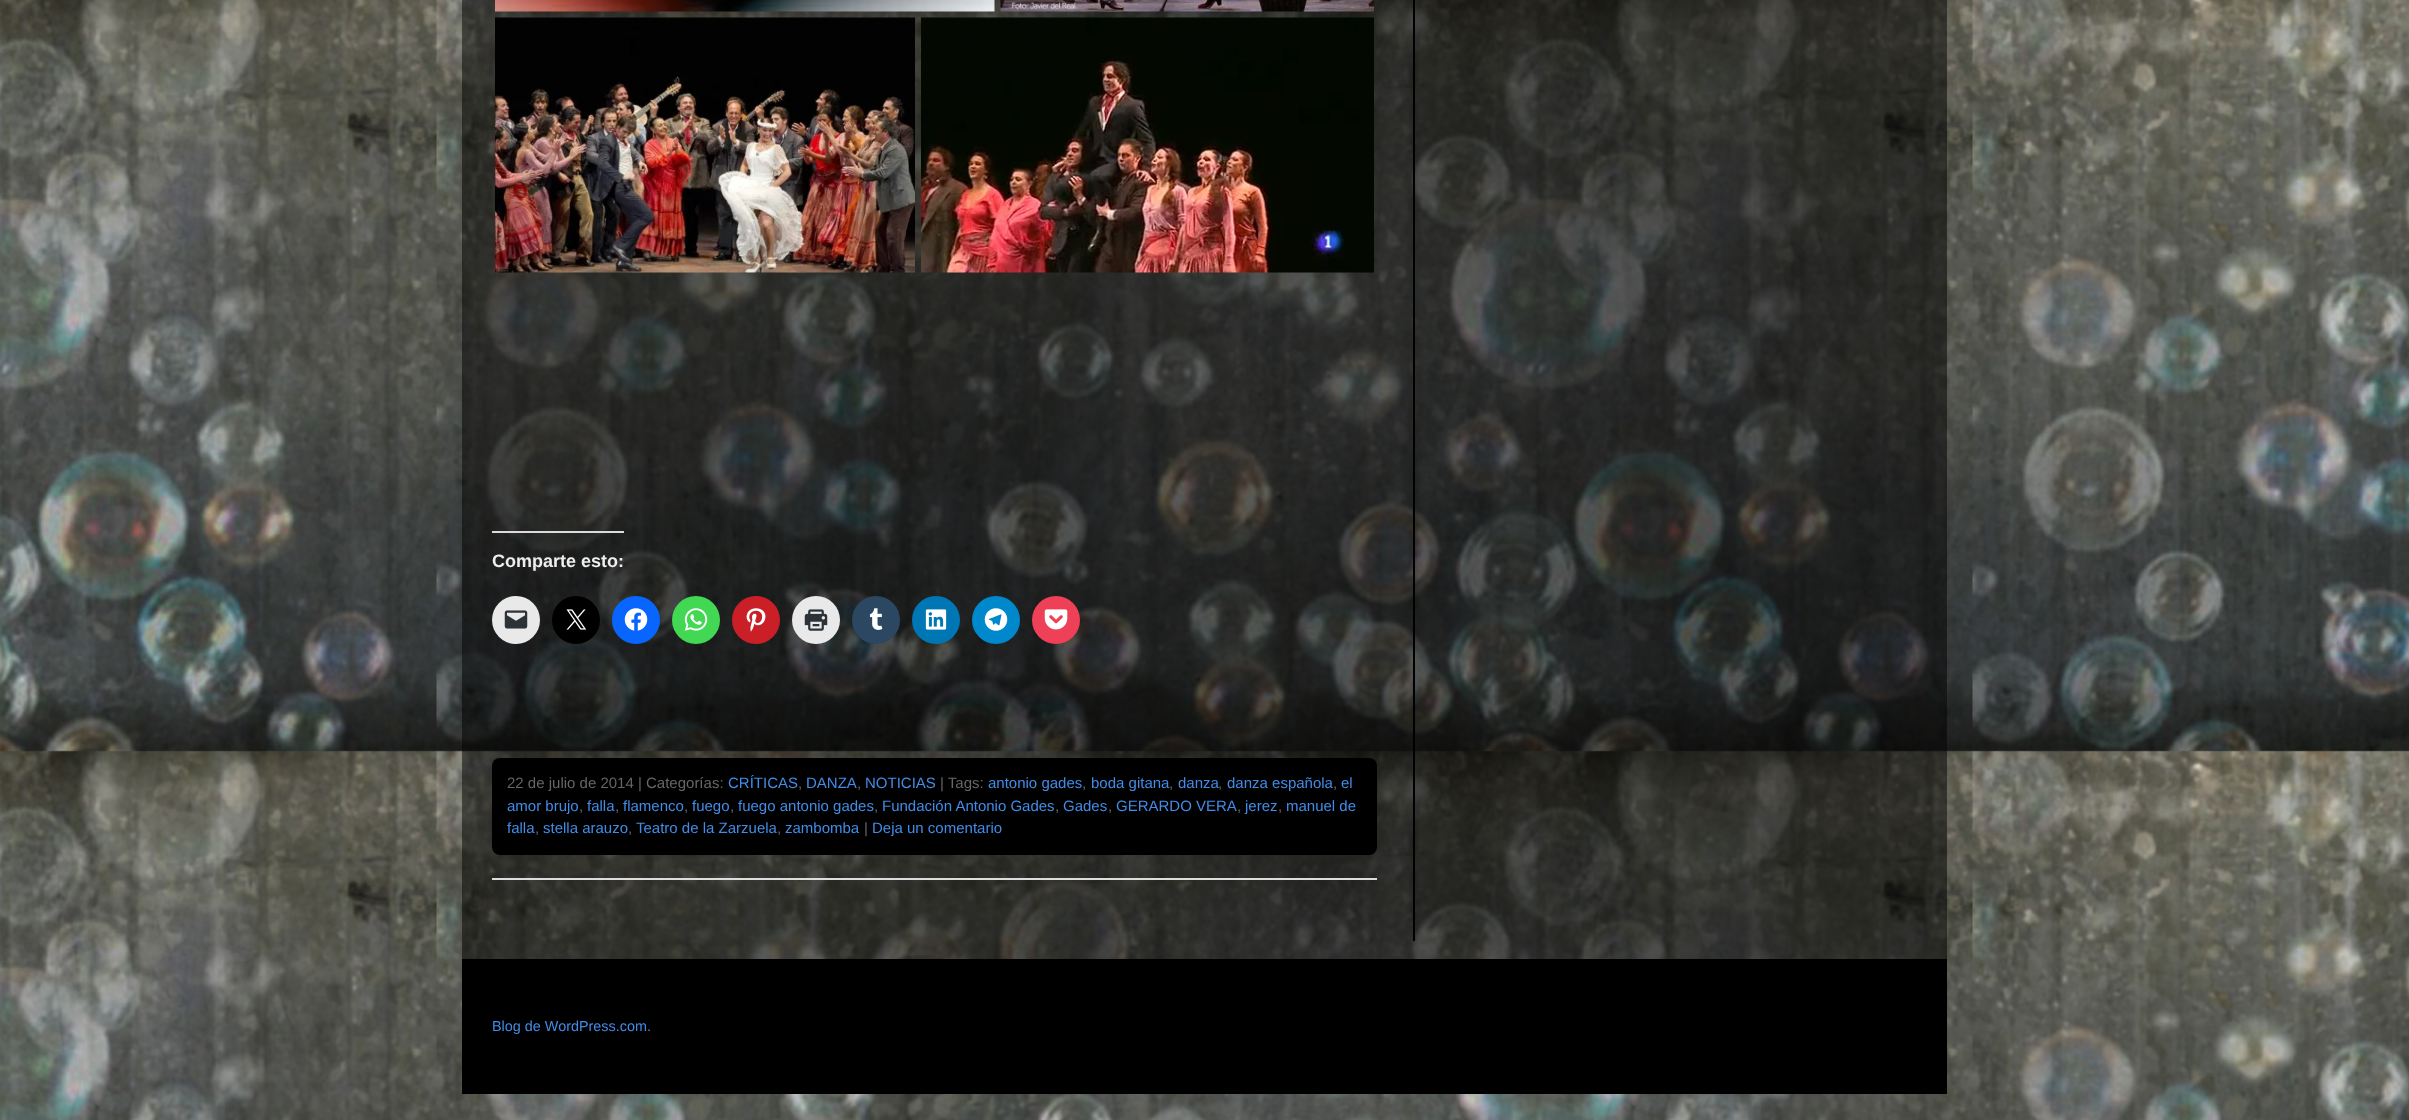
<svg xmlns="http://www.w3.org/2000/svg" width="2409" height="1120">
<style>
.a{font:bold 18px Liberation Sans;fill:#eee}
.b{font:15px Liberation Sans;fill:#666}
.c{font:15px Liberation Sans;fill:#428ce7}
.d{font:14.4px Liberation Sans;fill:#428ce7}
</style>
<rect width="100%" height="100%" fill="#fff"/>
<image href="1.png" x="0" y="0" width="2409" height="1120"/>
<path fill="#00000080" d="M462 0h1485v959H462z"/>
<path fill="#000" d="M1413 0h2v941H1413z"/>
<image href="2.png" x="495" y="0" width="500" height="12"/>
<image href="3.png" x="1000" y="0" width="374" height="12"/>
<image href="4.png" x="495" y="17" width="420" height="256"/>
<image href="5.png" x="921" y="17" width="453" height="256"/>
<path fill="#dcdcde" d="M492 531h132v2H492z"/>
<circle fill="#e9e9e9" cx="516" cy="620" r="24"/>
<image href="6.png" x="504" y="610" width="24" height="19"/>
<circle fill="#000" cx="576" cy="620" r="24"/>
<image href="7.png" x="566" y="609" width="21" height="21"/>
<circle fill="#0866ff" cx="636" cy="620" r="24"/>
<image href="8.png" x="624" y="608" width="24" height="23"/>
<circle fill="#43d854" cx="696" cy="620" r="24"/>
<image href="9.png" x="684" y="608" width="24" height="23"/>
<circle fill="#ca1f27" cx="756" cy="620" r="24"/>
<image href="10.png" x="746" y="608" width="20" height="24"/>
<circle fill="#e9e9e9" cx="816" cy="620" r="24"/>
<image href="11.png" x="804" y="609" width="24" height="22"/>
<circle fill="#2c4762" cx="876" cy="620" r="24"/>
<image href="12.png" x="869" y="608" width="14" height="22"/>
<circle fill="#0077b5" cx="936" cy="620" r="24"/>
<image href="13.png" x="925" y="609" width="22" height="21"/>
<circle fill="#08c" cx="996" cy="620" r="24"/>
<image href="14.png" x="984" y="608" width="24" height="23"/>
<circle fill="#ee4056" cx="1056" cy="620" r="24"/>
<image href="15.png" x="1044" y="609" width="24" height="21"/>
<rect fill="#000" x="492" y="758" width="885" height="97" rx="8"/>
<path fill="#ddd" d="M492 878h885v2H492z"/>
<path fill="#000" d="M462 959h1485v135H462z"/>
<text class="a" x="492" y="567">Comparte esto:</text>
<text class="b" x="507" y="788">22 de julio de 2014 | Categorías:</text>
<text class="c" x="728" y="788">CRÍTICAS</text>
<text class="b" x="798" y="788">,</text>
<text class="c" x="806" y="788">DANZA</text>
<text class="b" x="857" y="788">,</text>
<text class="c" x="865" y="788">NOTICIAS</text>
<text class="b" x="940" y="788">| Tags:</text>
<text class="c" x="988" y="788">antonio gades</text>
<text class="b" x="1082" y="788">,</text>
<text class="c" x="1091" y="788">boda gitana</text>
<text class="b" x="1169" y="788">,</text>
<text class="c" x="1178" y="788">danza</text>
<text class="b" x="1218" y="788">,</text>
<text class="c" x="1227" y="788">danza española</text>
<text class="b" x="1333" y="788">,</text>
<text class="c" x="1341" y="788">el</text>
<text class="c" x="507" y="811">amor brujo</text>
<text class="b" x="579" y="811">,</text>
<text class="c" x="587" y="811">falla</text>
<text class="b" x="615" y="811">,</text>
<text class="c" x="623" y="811">flamenco</text>
<text class="b" x="684" y="811">,</text>
<text class="c" x="692" y="811">fuego</text>
<text class="b" x="730" y="811">,</text>
<text class="c" x="738" y="811">fuego antonio gades</text>
<text class="b" x="874" y="811">,</text>
<text class="c" x="882" y="811">Fundación Antonio Gades</text>
<text class="b" x="1055" y="811">,</text>
<text class="c" x="1063" y="811">Gades</text>
<text class="b" x="1108" y="811">,</text>
<text class="c" x="1116" y="811">GERARDO VERA</text>
<text class="b" x="1237" y="811">,</text>
<text class="c" x="1245" y="811">jerez</text>
<text class="b" x="1278" y="811">,</text>
<text class="c" x="1286" y="811">manuel de</text>
<text class="c" x="507" y="833">falla</text>
<text class="b" x="535" y="833">,</text>
<text class="c" x="543" y="833">stella arauzo</text>
<text class="b" x="628" y="833">,</text>
<text class="c" x="636" y="833">Teatro de la Zarzuela</text>
<text class="b" x="777" y="833">,</text>
<text class="c" x="785" y="833">zambomba</text>
<text class="b" x="864" y="833">|</text>
<text class="c" x="872" y="833">Deja un comentario</text>
<text class="d" x="492" y="1031">Blog de WordPress.com.</text>
</svg>
